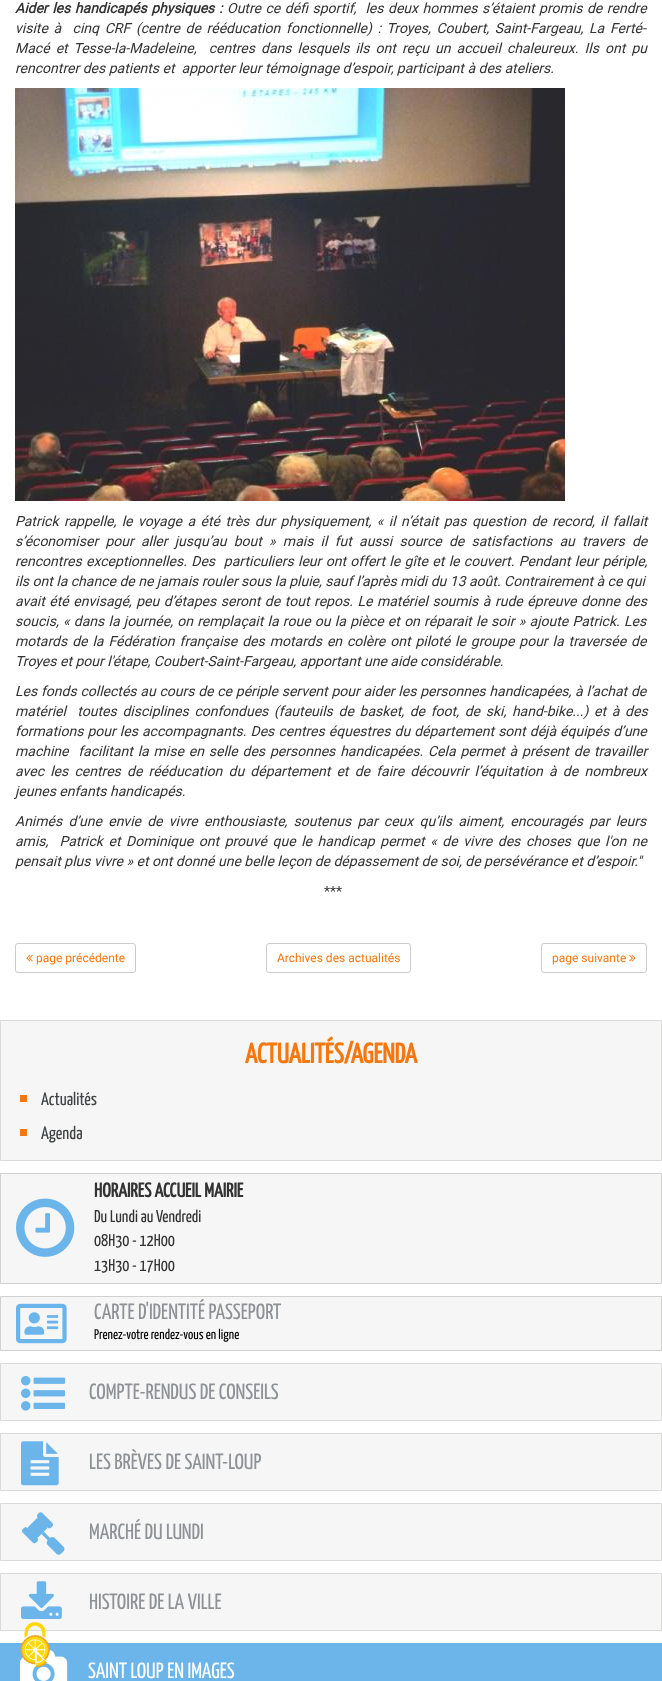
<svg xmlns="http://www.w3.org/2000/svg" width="662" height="1681">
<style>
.a{font:italic bold 14px Roboto;fill:#333}
.b{font:italic 14px Roboto;fill:#333}
.c{font:14px Roboto;fill:#333}
.d{font:12px Roboto;fill:#f7770f}
.e{font:bold 28px Yanone Kaffeesatz;fill:#f7770f}
.f{font:200 18px Yanone Kaffeesatz;fill:#3f4142}
.g{font:bold 20px Yanone Kaffeesatz;fill:#333}
.h{font:200 17px Yanone Kaffeesatz;fill:#333}
.i{font:200 22px Yanone Kaffeesatz;fill:#8e9296}
.j{font:200 14px Yanone Kaffeesatz;fill:#000}
.k{font:200 22px Yanone Kaffeesatz;fill:#fff}
</style>
<rect width="100%" height="100%" fill="#fff"/>
<image href="1.png" x="15" y="88" width="550" height="413"/>
<rect fill="none" stroke="#ccc" x="15.5" y="943.5" width="120" height="29" rx="2.5"/>
<image href="2.png" x="26" y="954" width="7" height="8"/>
<rect fill="none" stroke="#ccc" x="266.5" y="943.5" width="144" height="29" rx="2.5"/>
<rect fill="none" stroke="#ccc" x="541.5" y="943.5" width="105" height="29" rx="2.5"/>
<image href="3.png" x="629" y="954" width="7" height="8"/>
<path fill="#f6f6f6" stroke="#dadad9" d="M0.5 1020.5h661v140H0.5z"/>
<path fill="#f7770f" d="M20 1095h7v7H20z"/>
<path fill="#f7770f" d="M20 1129h7v7H20z"/>
<path fill="#f6f6f6" stroke="#d0d0cf" d="M0.5 1173.5h661v110H0.5z"/>
<image href="4.png" x="16" y="1198" width="59" height="59"/>
<path fill="#f6f6f6" stroke="#d0d0cf" d="M0.5 1296.5h661v54H0.5z"/>
<image href="5.png" x="16" y="1303" width="51" height="41"/>
<path fill="#f6f6f6" stroke="#dadad9" d="M0.5 1363.5h661v57H0.5z"/>
<image href="6.png" x="21" y="1376" width="44" height="35"/>
<path fill="#f6f6f6" stroke="#dadad9" d="M0.5 1433.5h661v57H0.5z"/>
<image href="7.png" x="21" y="1441" width="38" height="45"/>
<path fill="#f6f6f6" stroke="#dadad9" d="M0.5 1503.5h661v57H0.5z"/>
<image href="8.png" x="22" y="1512" width="43" height="43"/>
<path fill="#f6f6f6" stroke="#dadad9" d="M0.5 1573.5h661v57H0.5z"/>
<image href="9.png" x="21" y="1581" width="41" height="38"/>
<path fill="#6bb5eb" d="M0 1643h662v38H0z"/>
<image href="10.png" x="20" y="1650" width="48" height="31"/>
<image href="11.png" x="20" y="1622" width="30" height="46"/>
<text class="a" x="15" y="13" word-spacing="1.1">Aider les handicapés physiques :</text>
<text class="b" xml:space="preserve" x="227" y="13" word-spacing="1.1">Outre ce défi sportif,  les deux hommes s’étaient promis de rendre</text>
<text class="b" xml:space="preserve" x="15" y="33" word-spacing="2.25">visite à  cinq CRF (centre de rééducation fonctionnelle) : Troyes, Coubert, Saint-Fargeau, La Ferté-</text>
<text class="b" xml:space="preserve" x="15" y="53" word-spacing="2.6">Macé et Tesse-la-Madeleine,  centres dans lesquels ils ont reçu un accueil chaleureux. Ils ont pu</text>
<text class="b" xml:space="preserve" x="15" y="73">rencontrer des patients et  apporter leur témoignage d’espoir, participant à des ateliers.</text>
<text class="b" x="15" y="526" word-spacing="2">Patrick rappelle, le voyage a été très dur physiquement, « il n’était pas question de record, il fallait</text>
<text class="b" x="15" y="546" word-spacing="3.75">s’économiser pour aller jusqu’au bout » mais il fut aussi source de satisfactions au travers de</text>
<text class="b" xml:space="preserve" x="15" y="566" word-spacing="0.9">rencontres exceptionnelles. Des  particuliers leur ont offert le gîte et le couvert. Pendant leur périple,</text>
<text class="b" x="15" y="586">ils ont la chance de ne jamais rouler sous la pluie, sauf l’après midi du 13 août. Contrairement à ce qui</text>
<text class="b" x="15" y="606" word-spacing="1.1">avait été envisagé, peu d’étapes seront de tout repos. Le matériel soumis à rude épreuve donne des</text>
<text class="b" x="15" y="626" word-spacing="0.8">soucis, « dans la journée, on remplaçait la roue ou la pièce et on réparait le soir » ajoute Patrick. Les</text>
<text class="b" x="15" y="646" word-spacing="1.5">motards de la Fédération française des motards en colère ont piloté le groupe pour la traversée de</text>
<text class="b" x="15" y="666">Troyes et pour l'étape, Coubert-Saint-Fargeau, apportant une aide considérable.</text>
<text class="b" x="15" y="696" word-spacing="0.3">Les fonds collectés au cours de ce périple servent pour aider les personnes handicapées, à l’achat de</text>
<text class="b" xml:space="preserve" x="15" y="716" word-spacing="2.25">matériel  toutes disciplines confondues (fauteuils de basket, de foot, de ski, hand-bike...) et à des</text>
<text class="b" x="15" y="736" word-spacing="0.6">formations pour les accompagnants. Des centres équestres du département sont déjà équipés d’une</text>
<text class="b" xml:space="preserve" x="15" y="756" word-spacing="1.4">machine  facilitant la mise en selle des personnes handicapées. Cela permet à présent de travailler</text>
<text class="b" x="15" y="776" word-spacing="2.75">avec les centres de rééducation du département et de faire découvrir l’équitation à de nombreux</text>
<text class="b" x="15" y="796">jeunes enfants handicapés.</text>
<text class="b" x="15" y="826" word-spacing="2.75">Animés d’une envie de vivre enthousiaste, soutenus par ceux qu’ils aiment, encouragés par leurs</text>
<text class="b" xml:space="preserve" x="15" y="846" word-spacing="2.1">amis,  Patrick et Dominique ont prouvé que le handicap permet « de vivre des choses que l'on ne</text>
<text class="b" x="15" y="866">pensait plus vivre » et ont donné une belle leçon de dépassement de soi, de persévérance et d’espoir."</text>
<text class="c" x="324" y="896">***</text>
<text class="d" x="36" y="962">page précédente</text>
<text class="d" x="277" y="962">Archives des actualités</text>
<text class="d" x="552" y="962">page suivante</text>
<text class="e" x="245" y="1063">ACTUALITÉS/AGENDA</text>
<text class="f" x="41" y="1105">Actualités</text>
<text class="f" x="41" y="1139">Agenda</text>
<text class="g" x="94" y="1197">HORAIRES ACCUEIL MAIRIE</text>
<text class="h" x="94" y="1222">Du Lundi au Vendredi</text>
<text class="h" x="94" y="1246">08H30 - 12H00</text>
<text class="h" x="94" y="1271">13H30 - 17H00</text>
<text class="i" x="94" y="1319">CARTE D'IDENTITÉ PASSEPORT</text>
<text class="j" x="94" y="1339">Prenez-votre rendez-vous en ligne</text>
<text class="i" x="89" y="1399">COMPTE-RENDUS DE CONSEILS</text>
<text class="i" x="89" y="1469">LES BRÈVES DE SAINT-LOUP</text>
<text class="i" x="89" y="1539">MARCHÉ DU LUNDI</text>
<text class="i" x="89" y="1609">HISTOIRE DE LA VILLE</text>
<text class="k" x="88" y="1678">SAINT LOUP EN IMAGES</text>
</svg>
